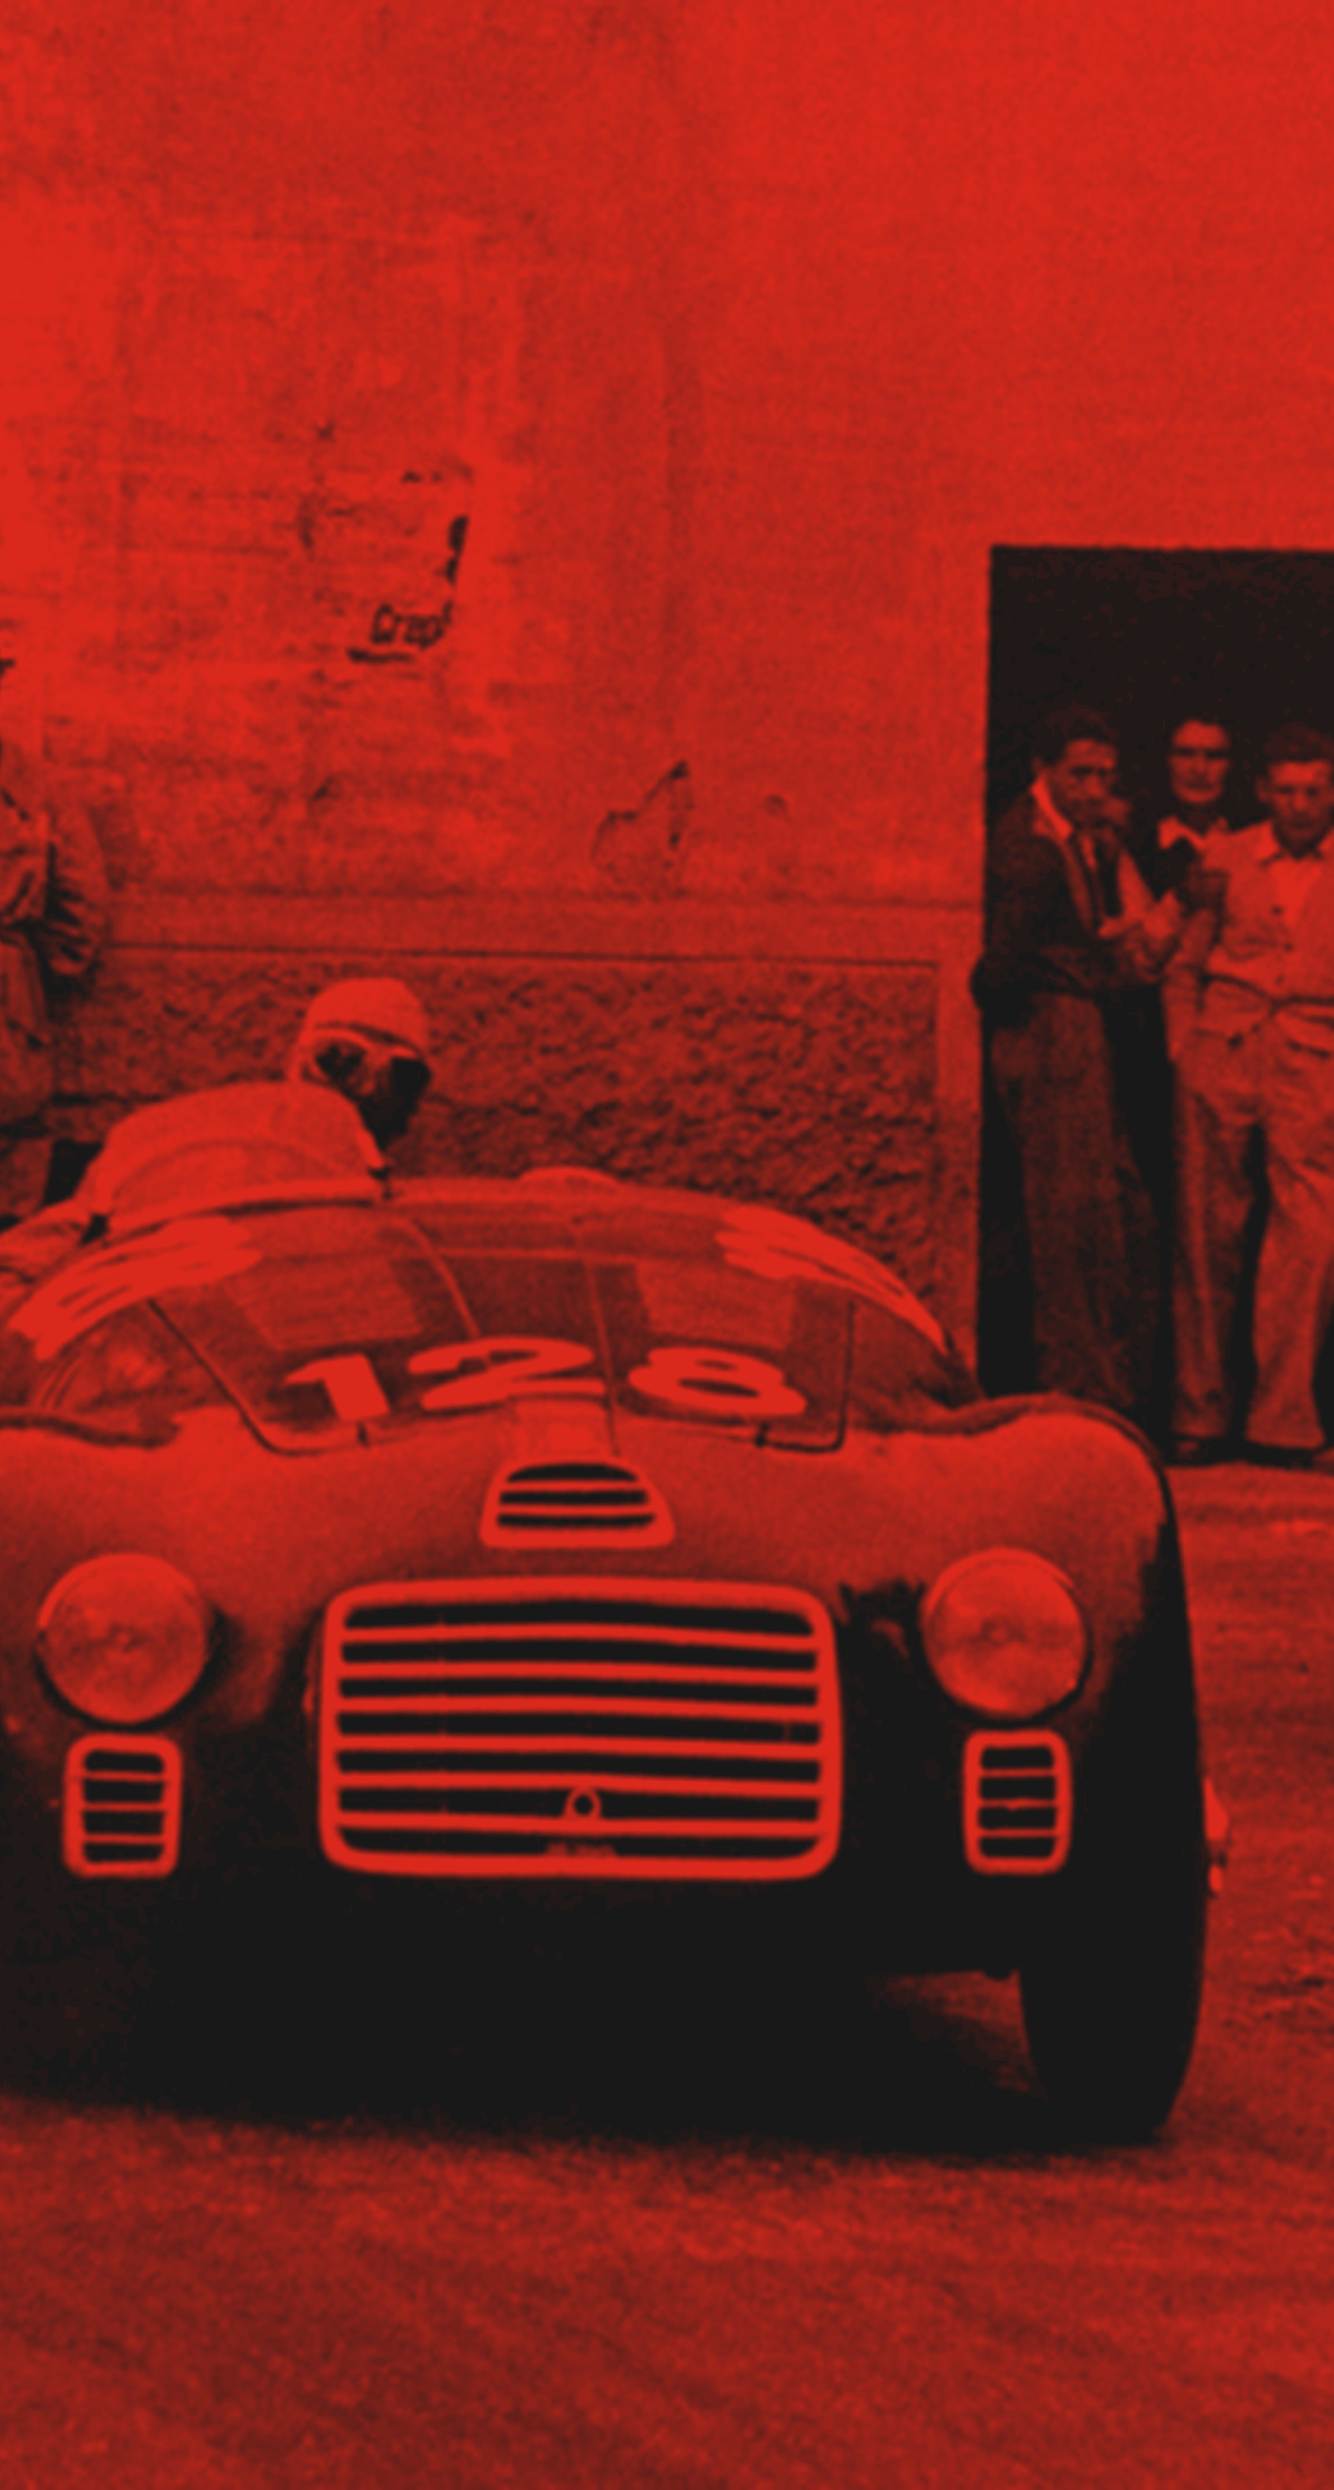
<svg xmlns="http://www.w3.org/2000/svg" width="1334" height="2490">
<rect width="100%" height="100%" fill="#fff"/>
<image href="1.png" x="0" y="0" width="1334" height="2490"/>
</svg>
